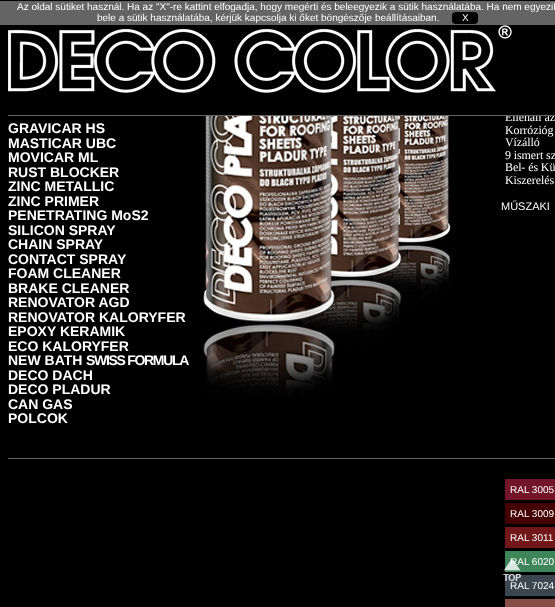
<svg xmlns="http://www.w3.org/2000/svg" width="555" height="607">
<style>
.a{font:10px Liberation Sans;fill:#fff}
.b{font:bold 14px Liberation Sans;fill:#fff}
.c{font:bold 14px Liberation Sans;letter-spacing:-1.3px;fill:#fff}
.d{font:12px Liberation Serif;letter-spacing:-0.1px;fill:#fff}
.e{font:11px Liberation Sans;fill:#fff}
</style>
<rect width="100%" height="100%" fill="#000"/>
<path fill="#646464" d="M0 1h555v24H0z"/>
<image href="1.png" x="8" y="25" width="504" height="68"/>
<path fill="#646464" d="M8 458h547v1H8z"/>
<image href="2.png" x="201" y="116" width="254" height="281"/>
<path fill="#721528" d="M505 479h50v21H505z"/>
<path fill="#400" d="M505 503h50v21H505z"/>
<path fill="#721719" d="M505 527h50v21H505z"/>
<path fill="#3e855a" d="M505 551h50v21H505z"/>
<path fill="#3a4750" d="M505 575h50v21H505z"/>
<path fill="#864e44" d="M505 599h50v8H505z"/>
<text class="a" x="17" y="10">Az oldal sütiket használ. Ha az "X"-re kattint elfogadja, hogy megérti és beleegyezik a sütik használatába. Ha nem egyezik</text>
<text class="a" x="97" y="21">bele a sütik használatába, kérjük kapcsolja ki őket böngészője beállításaiban.</text>
<rect fill="#000" x="452" y="12" width="26" height="12" rx="4"/>
<text class="a" x="462" y="21">X</text>
<text class="b" x="8" y="133">GRAVICAR HS</text>
<text class="b" x="8" y="148">MASTICAR UBC</text>
<text class="b" x="8" y="162">MOVICAR ML</text>
<text class="b" x="8" y="177">RUST BLOCKER</text>
<text class="b" x="8" y="191">ZINC METALLIC</text>
<text class="b" x="8" y="206">ZINC PRIMER</text>
<text class="b" x="8" y="220">PENETRATING MoS2</text>
<text class="b" x="8" y="235">SILICON SPRAY</text>
<text class="b" x="8" y="249">CHAIN SPRAY</text>
<text class="b" x="8" y="264">CONTACT SPRAY</text>
<text class="b" x="8" y="278">FOAM CLEANER</text>
<text class="b" x="8" y="293">BRAKE CLEANER</text>
<text class="b" x="8" y="307">RENOVATOR AGD</text>
<text class="b" x="8" y="322">RENOVATOR KALORYFER</text>
<text class="b" x="8" y="336">EPOXY KERAMIK</text>
<text class="b" x="8" y="351">ECO KALORYFER</text>
<text class="b" x="8" y="365">NEW BATH</text>
<text class="c" x="86" y="365">SWISS FORMULA</text>
<text class="b" x="8" y="380">DECO DACH</text>
<text class="b" x="8" y="394">DECO PLADUR</text>
<text class="b" x="8" y="409">CAN GAS</text>
<text class="b" x="8" y="423">POLCOK</text>
<text class="d" x="505" y="121">Ellenáll az</text>
<path fill="#646464" d="M8 115h547v1H8z"/>
<path fill="#000" d="M505 112h36v3H505z"/>
<text class="d" x="505" y="134">Korrózióg</text>
<text class="d" x="505" y="146">Vízálló</text>
<text class="d" x="505" y="159">9 ismert sz</text>
<text class="d" x="505" y="171">Bel- és Kü</text>
<text class="d" x="505" y="184">Kiszerelés</text>
<text class="e" x="501" y="210">MŰSZAKI</text>
<text class="a" x="510" y="493">RAL 3005</text>
<text class="a" x="510" y="517">RAL 3009</text>
<text class="a" x="510" y="541">RAL 3011</text>
<text class="a" x="510" y="565">RAL 6020</text>
<text class="a" x="510" y="589">RAL 7024</text>
<image href="3.png" x="503" y="558" width="18" height="23"/>
</svg>
